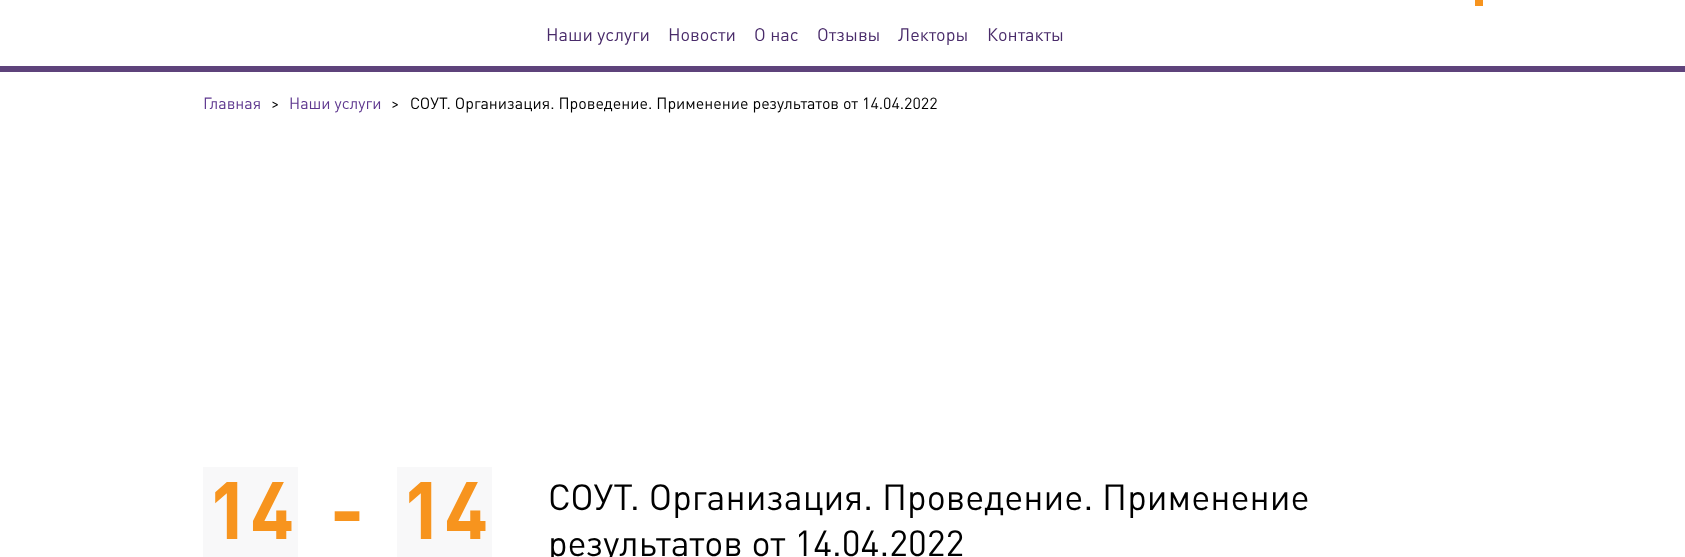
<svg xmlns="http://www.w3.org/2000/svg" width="1685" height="557">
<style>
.a{font:18px DIN;fill:#492b6a}
.b{font:16px DIN;fill:#5e378f}
.c{font:16px DIN;fill:#000}
.d{font:bold 80px DIN;fill:#f7941e}
.e{font:36px DIN;fill:#000}
</style>
<rect width="100%" height="100%" fill="#fff"/>
<path fill="#5e437b" d="M0 66h1685v6H0z"/>
<path fill="#f7941e" d="M1475 0h8v6H1475z"/>
<path fill="#f8f8f9" d="M203 467h95v90H203z"/>
<path fill="#f8f8f9" d="M397 467h95v90H397z"/>
<text class="a" x="546" y="41">Наши услуги</text>
<text class="a" x="668" y="41">Новости</text>
<text class="a" x="754" y="41">О нас</text>
<text class="a" x="817" y="41">Отзывы</text>
<text class="a" x="898" y="41">Лекторы</text>
<text class="a" x="987" y="41">Контакты</text>
<text class="b" x="203" y="109">Главная</text>
<text class="c" x="271" y="109">&gt;</text>
<text class="b" x="289" y="109">Наши услуги</text>
<text class="c" x="391" y="109">&gt;</text>
<text class="c" x="410" y="109">СОУТ. Организация. Проведение. Применение результатов от 14.04.2022</text>
<text class="d" x="207" y="539">14</text>
<text class="d" x="330" y="539">-</text>
<text class="d" x="401" y="539">14</text>
<text class="e" x="548" y="510">СОУТ. Организация. Проведение. Применение</text>
<text class="e" x="548" y="556">результатов от 14.04.2022</text>
</svg>
